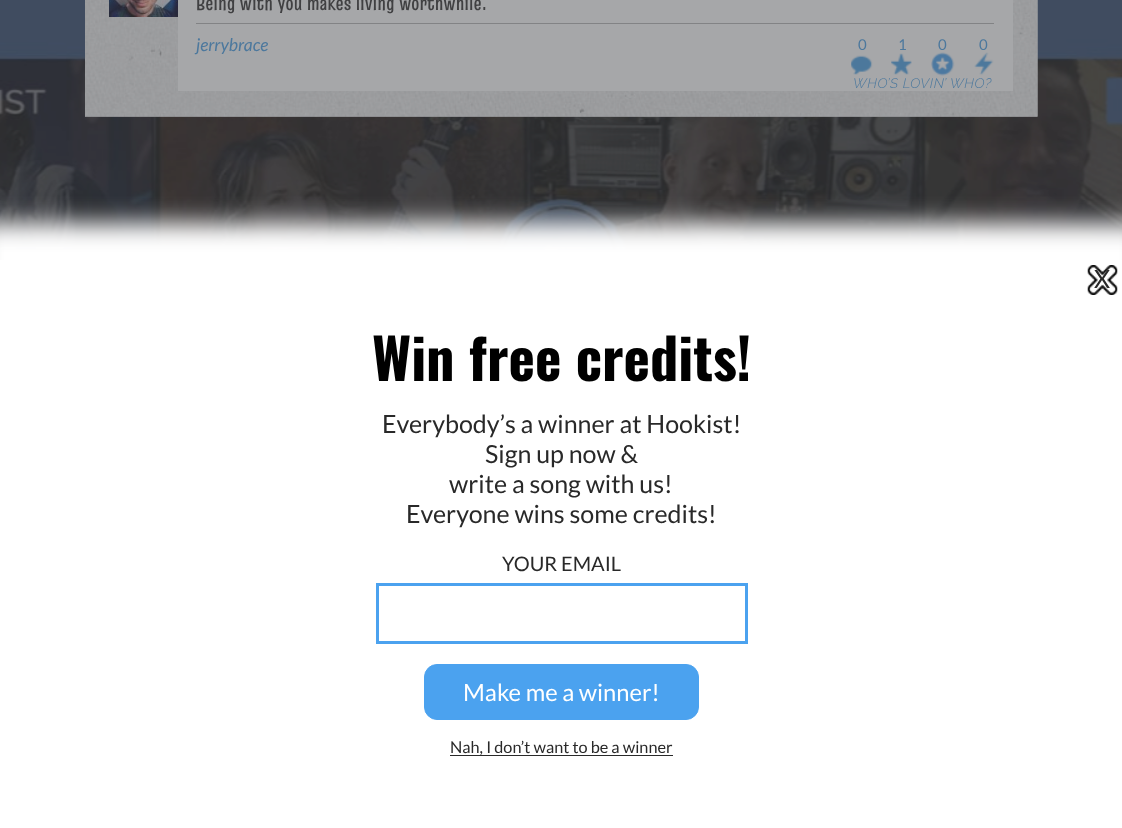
<svg xmlns="http://www.w3.org/2000/svg" width="1122" height="828">
<style>
.a{font:600 20px Truculenta;fill:#404042}
.b{font:italic 17.5px Lato;fill:#4c789d}
.c{font:15px Lato;fill:#4c789d}
.d{font:italic 100 13.75px Raleway;letter-spacing:0.6px;fill:#4c789d}
.e{font:25px Lato;fill:#292929}
.f{font:bold 56.25px Oswald;fill:#000}
.g{font:20px Lato;fill:#292929}
.h{font:23.75px Lato;fill:#fff}
.i{font:16.25px Lato;fill:#292929}
</style>
<rect width="100%" height="100%" fill="#fff"/>
<image href="1.png" x="0" y="0" width="1122" height="260"/>
<image href="2.png" x="85" y="0" width="953" height="117"/>
<image href="3.png" x="85" y="0" width="953" height="117"/>
<image href="4.png" x="109" y="0" width="69" height="17"/>
<path fill="#a6a7a9" d="M178 0h835v91H178z"/>
<path fill="#828385" d="M196 23h798v1H196z"/>
<image href="5.png" x="851" y="55" width="22" height="20"/>
<image href="6.png" x="891" y="53" width="21" height="22"/>
<image href="7.png" x="931" y="52" width="24" height="24"/>
<image href="8.png" x="974" y="52" width="20" height="23"/>
<path fill="#fff" filter="blur(12.5px)" d="M-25 223h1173v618H-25z"/>
<image href="9.png" x="1087" y="265" width="31" height="30"/>
<path fill="none" stroke="#4ba2ef" stroke-width="3" d="M377.5 584.5h369v58H377.5z"/>
<rect fill="#4ba2ef" stroke="#4ba2ef" x="424.5" y="664.5" width="274" height="55" rx="12.5"/>
<path fill="#292929" d="M450 755h223v1H450z"/>
<text class="a" x="196" y="10">Being with you makes living worthwhile.</text>
<text class="b" x="196" y="51">jerrybrace</text>
<text class="c" x="858" y="50">0</text>
<text class="c" x="898" y="50">1</text>
<text class="c" x="938" y="50">0</text>
<text class="c" x="979" y="50">0</text>
<text class="d" x="853" y="88">WHO’S LOVIN’ WHO?</text>
<text class="e" x="1094" y="288">X</text>
<text class="f" x="372" y="381">Win free credits!</text>
<text class="e" x="382" y="433">Everybody’s a winner at Hookist!</text>
<text class="e" x="485" y="463">Sign up now &amp;</text>
<text class="e" x="449" y="493">write a song with us!</text>
<text class="e" x="406" y="523">Everyone wins some credits!</text>
<text class="g" x="502" y="571">YOUR EMAIL</text>
<text class="h" x="463" y="701">Make me a winner!</text>
<text class="i" x="450" y="753">Nah, I don’t want to be a winner</text>
</svg>
